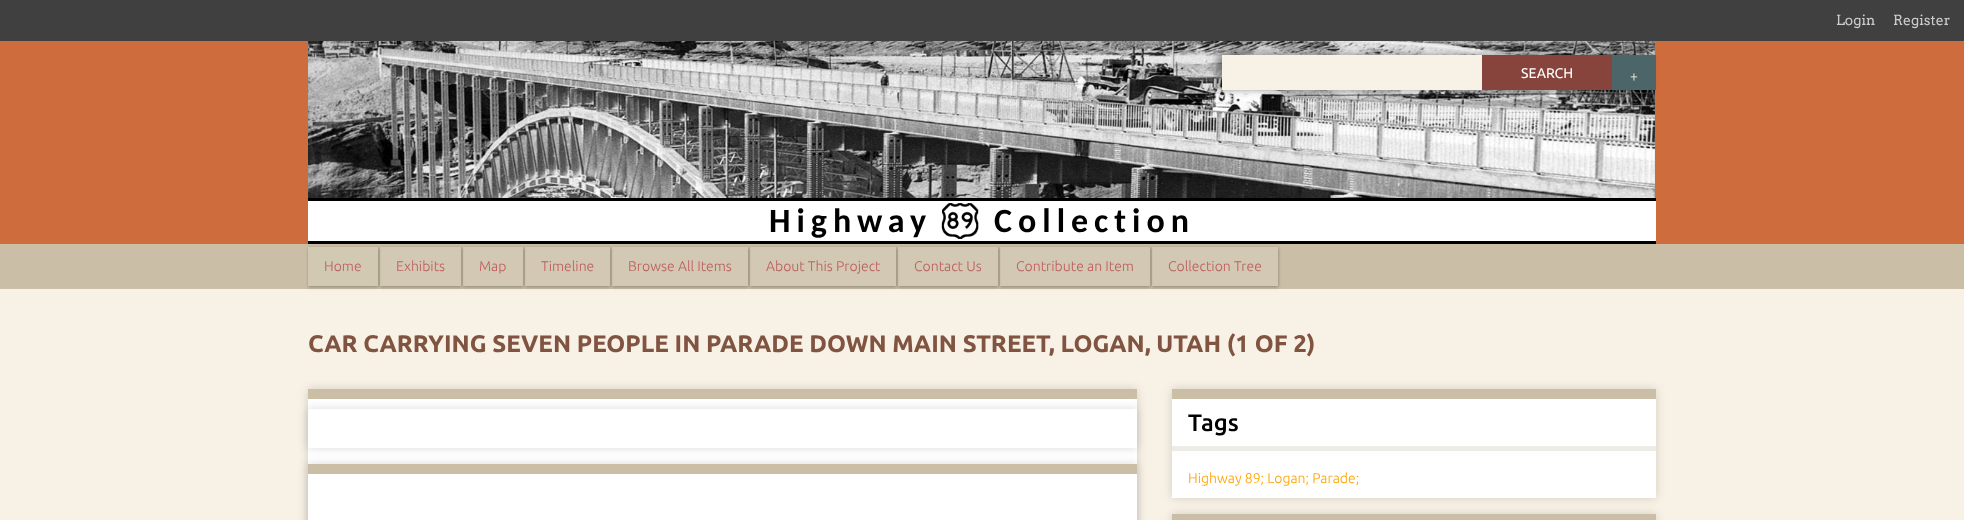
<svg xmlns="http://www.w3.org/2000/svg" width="1964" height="520">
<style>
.a{font:14px Arvo;fill:#ccc}
.b{font:14px Ubuntu;fill:#fff}
.c{font:300 14px Ubuntu;fill:#f8f1e5}
.d{font:bold 34px Carlito;letter-spacing:6px;fill:#000}
.e{font:300 14px Ubuntu;fill:#be5e5e}
.f{font:bold 24px Ubuntu;fill:#815442}
.g{font:500 24px Ubuntu;fill:#000}
.h{font:300 14px Ubuntu;fill:#ffa300}
</style>
<defs>
<clipPath id="clip1"><path d="M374 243h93v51h-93zm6 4h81v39h-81z" clip-rule="evenodd"/></clipPath>
<clipPath id="clip2"><path d="M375 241h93v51h-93zm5 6h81v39h-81z" clip-rule="evenodd"/></clipPath>
<clipPath id="clip3"><path d="M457 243h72v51h-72zm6 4h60v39h-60z" clip-rule="evenodd"/></clipPath>
<clipPath id="clip4"><path d="M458 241h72v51h-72zm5 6h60v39h-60z" clip-rule="evenodd"/></clipPath>
<clipPath id="clip5"><path d="M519 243h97v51h-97zm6 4h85v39h-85z" clip-rule="evenodd"/></clipPath>
<clipPath id="clip6"><path d="M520 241h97v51h-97zm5 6h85v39h-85z" clip-rule="evenodd"/></clipPath>
<clipPath id="clip7"><path d="M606 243h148v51h-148zm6 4h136v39h-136z" clip-rule="evenodd"/></clipPath>
<clipPath id="clip8"><path d="M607 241h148v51h-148zm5 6h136v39h-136z" clip-rule="evenodd"/></clipPath>
<clipPath id="clip9"><path d="M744 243h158v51h-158zm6 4h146v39h-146z" clip-rule="evenodd"/></clipPath>
<clipPath id="clip10"><path d="M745 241h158v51h-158zm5 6h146v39h-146z" clip-rule="evenodd"/></clipPath>
<clipPath id="clip11"><path d="M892 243h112v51h-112zm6 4h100v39h-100z" clip-rule="evenodd"/></clipPath>
<clipPath id="clip12"><path d="M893 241h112v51h-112zm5 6h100v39h-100z" clip-rule="evenodd"/></clipPath>
<clipPath id="clip13"><path d="M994 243h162v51h-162zm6 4h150v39h-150z" clip-rule="evenodd"/></clipPath>
<clipPath id="clip14"><path d="M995 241h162v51h-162zm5 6h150v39h-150z" clip-rule="evenodd"/></clipPath>
<clipPath id="clip15"><path d="M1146 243h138v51h-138zm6 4h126v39h-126z" clip-rule="evenodd"/></clipPath>
<clipPath id="clip16"><path d="M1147 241h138v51h-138zm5 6h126v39h-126z" clip-rule="evenodd"/></clipPath>
<clipPath id="clip17"><path d="M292 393h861v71h-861zm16 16h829v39h-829z" clip-rule="evenodd"/></clipPath>
<clipPath id="clip18"><path d="M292 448h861v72h-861zm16 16h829v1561h-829z" clip-rule="evenodd"/></clipPath>
</defs>
<rect width="100%" height="100%" fill="#404040"/>
<path fill="#ce6c3e" d="M0 41h1964v203H0z"/>
<image href="1.png" x="308" y="41" width="1347" height="157"/>
<path fill="#00000066" filter="blur(3.5px)" d="M1217 55h434v35H1217z"/>
<path fill="#f8f1e5" d="M1222 55h260v35H1222z"/>
<path fill="#86443c" d="M1482 55h130v35H1482z"/>
<path fill="#4b6569" d="M1612 55h44v35H1612z"/>
<path fill="#fff" d="M308 201h1348v40H308z"/>
<path fill="#000" d="M308 198h1348v3H308z"/>
<path fill="#000" d="M308 241h1348v3H308z"/>
<image href="2.png" x="941" y="203" width="38" height="36"/>
<path fill="#cabfa6" d="M0 244h1964v45H0z"/>
<path fill="#f8f1e5" d="M0 289h1964v231H0z"/>
<path fill="#00000026" filter="blur(1.5px)" d="M308 249h70v39H308z"/>
<path fill="#00000026" filter="blur(1.5px)" d="M309 247h70v39H309z"/>
<g clip-path="url(#clip1)">
<path fill="#00000026" filter="blur(1.5px)" d="M380 249h81v39H380z"/>
</g>
<path fill="#d2c9b3" d="M308 247h70v39H308z"/>
<g clip-path="url(#clip2)">
<path fill="#00000026" filter="blur(1.5px)" d="M381 247h81v39H381z"/>
</g>
<g clip-path="url(#clip3)">
<path fill="#00000026" filter="blur(1.5px)" d="M463 249h60v39H463z"/>
</g>
<path fill="#ffffff26" d="M380 247h81v39H380z"/>
<g clip-path="url(#clip4)">
<path fill="#00000026" filter="blur(1.5px)" d="M464 247h60v39H464z"/>
</g>
<g clip-path="url(#clip5)">
<path fill="#00000026" filter="blur(1.5px)" d="M525 249h85v39H525z"/>
</g>
<path fill="#ffffff26" d="M463 247h60v39H463z"/>
<g clip-path="url(#clip6)">
<path fill="#00000026" filter="blur(1.5px)" d="M526 247h85v39H526z"/>
</g>
<g clip-path="url(#clip7)">
<path fill="#00000026" filter="blur(1.5px)" d="M612 249h136v39H612z"/>
</g>
<path fill="#ffffff26" d="M525 247h85v39H525z"/>
<g clip-path="url(#clip8)">
<path fill="#00000026" filter="blur(1.5px)" d="M613 247h136v39H613z"/>
</g>
<g clip-path="url(#clip9)">
<path fill="#00000026" filter="blur(1.5px)" d="M750 249h146v39H750z"/>
</g>
<path fill="#ffffff26" d="M612 247h136v39H612z"/>
<g clip-path="url(#clip10)">
<path fill="#00000026" filter="blur(1.5px)" d="M751 247h146v39H751z"/>
</g>
<g clip-path="url(#clip11)">
<path fill="#00000026" filter="blur(1.5px)" d="M898 249h100v39H898z"/>
</g>
<path fill="#ffffff26" d="M750 247h146v39H750z"/>
<g clip-path="url(#clip12)">
<path fill="#00000026" filter="blur(1.5px)" d="M899 247h100v39H899z"/>
</g>
<g clip-path="url(#clip13)">
<path fill="#00000026" filter="blur(1.5px)" d="M1000 249h150v39H1000z"/>
</g>
<path fill="#ffffff26" d="M898 247h100v39H898z"/>
<g clip-path="url(#clip14)">
<path fill="#00000026" filter="blur(1.5px)" d="M1001 247h150v39H1001z"/>
</g>
<g clip-path="url(#clip15)">
<path fill="#00000026" filter="blur(1.5px)" d="M1152 249h126v39H1152z"/>
</g>
<path fill="#ffffff26" d="M1000 247h150v39H1000z"/>
<g clip-path="url(#clip16)">
<path fill="#00000026" filter="blur(1.5px)" d="M1153 247h126v39H1153z"/>
</g>
<path fill="#ffffff26" d="M1152 247h126v39H1152z"/>
<path fill="#00000026" filter="blur(5px)" d="M308 389h829v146H308z"/>
<path fill="#fff" d="M308 399h829v121H308z"/>
<path fill="#cabfa6" d="M308 389h829v10H308z"/>
<g clip-path="url(#clip17)">
<path fill="#00000026" filter="blur(5px)" d="M308 409h829v39H308z"/>
</g>
<g clip-path="url(#clip18)">
<path fill="#00000026" filter="blur(5px)" d="M308 464h829v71H308z"/>
</g>
<path fill="#cabfa6" d="M308 464h829v10H308z"/>
<path fill="#00000026" filter="blur(5px)" d="M1172 389h484v109H1172z"/>
<path fill="#fff" d="M1172 399h484v99H1172z"/>
<path fill="#cabfa6" d="M1172 389h484v10H1172z"/>
<path fill="#ecebe6" d="M1172 446h484v5H1172z"/>
<path fill="#00000026" filter="blur(5px)" d="M1172 514h484v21H1172z"/>
<path fill="#cabfa6" d="M1172 514h484v6H1172z"/>
<text class="a" x="1836" y="25">Login</text>
<text class="a" x="1893" y="25">Register</text>
<text class="b" x="1521" y="78">SEARCH</text>
<text class="c" x="1630" y="81">+</text>
<text class="d" x="769" y="232">Highway</text>
<text class="d" x="994" y="232">Collection</text>
<text class="e" x="324" y="271">Home</text>
<text class="e" x="396" y="271">Exhibits</text>
<text class="e" x="479" y="271">Map</text>
<text class="e" x="541" y="271">Timeline</text>
<text class="e" x="628" y="271">Browse All Items</text>
<text class="e" x="766" y="271">About This Project</text>
<text class="e" x="914" y="271">Contact Us</text>
<text class="e" x="1016" y="271">Contribute an Item</text>
<text class="e" x="1168" y="271">Collection Tree</text>
<text class="f" x="308" y="352">CAR CARRYING SEVEN PEOPLE IN PARADE DOWN MAIN STREET, LOGAN, UTAH (1 OF 2)</text>
<text class="g" x="1188" y="431">Tags</text>
<text class="h" x="1188" y="483">Highway 89; Logan; Parade;</text>
</svg>
